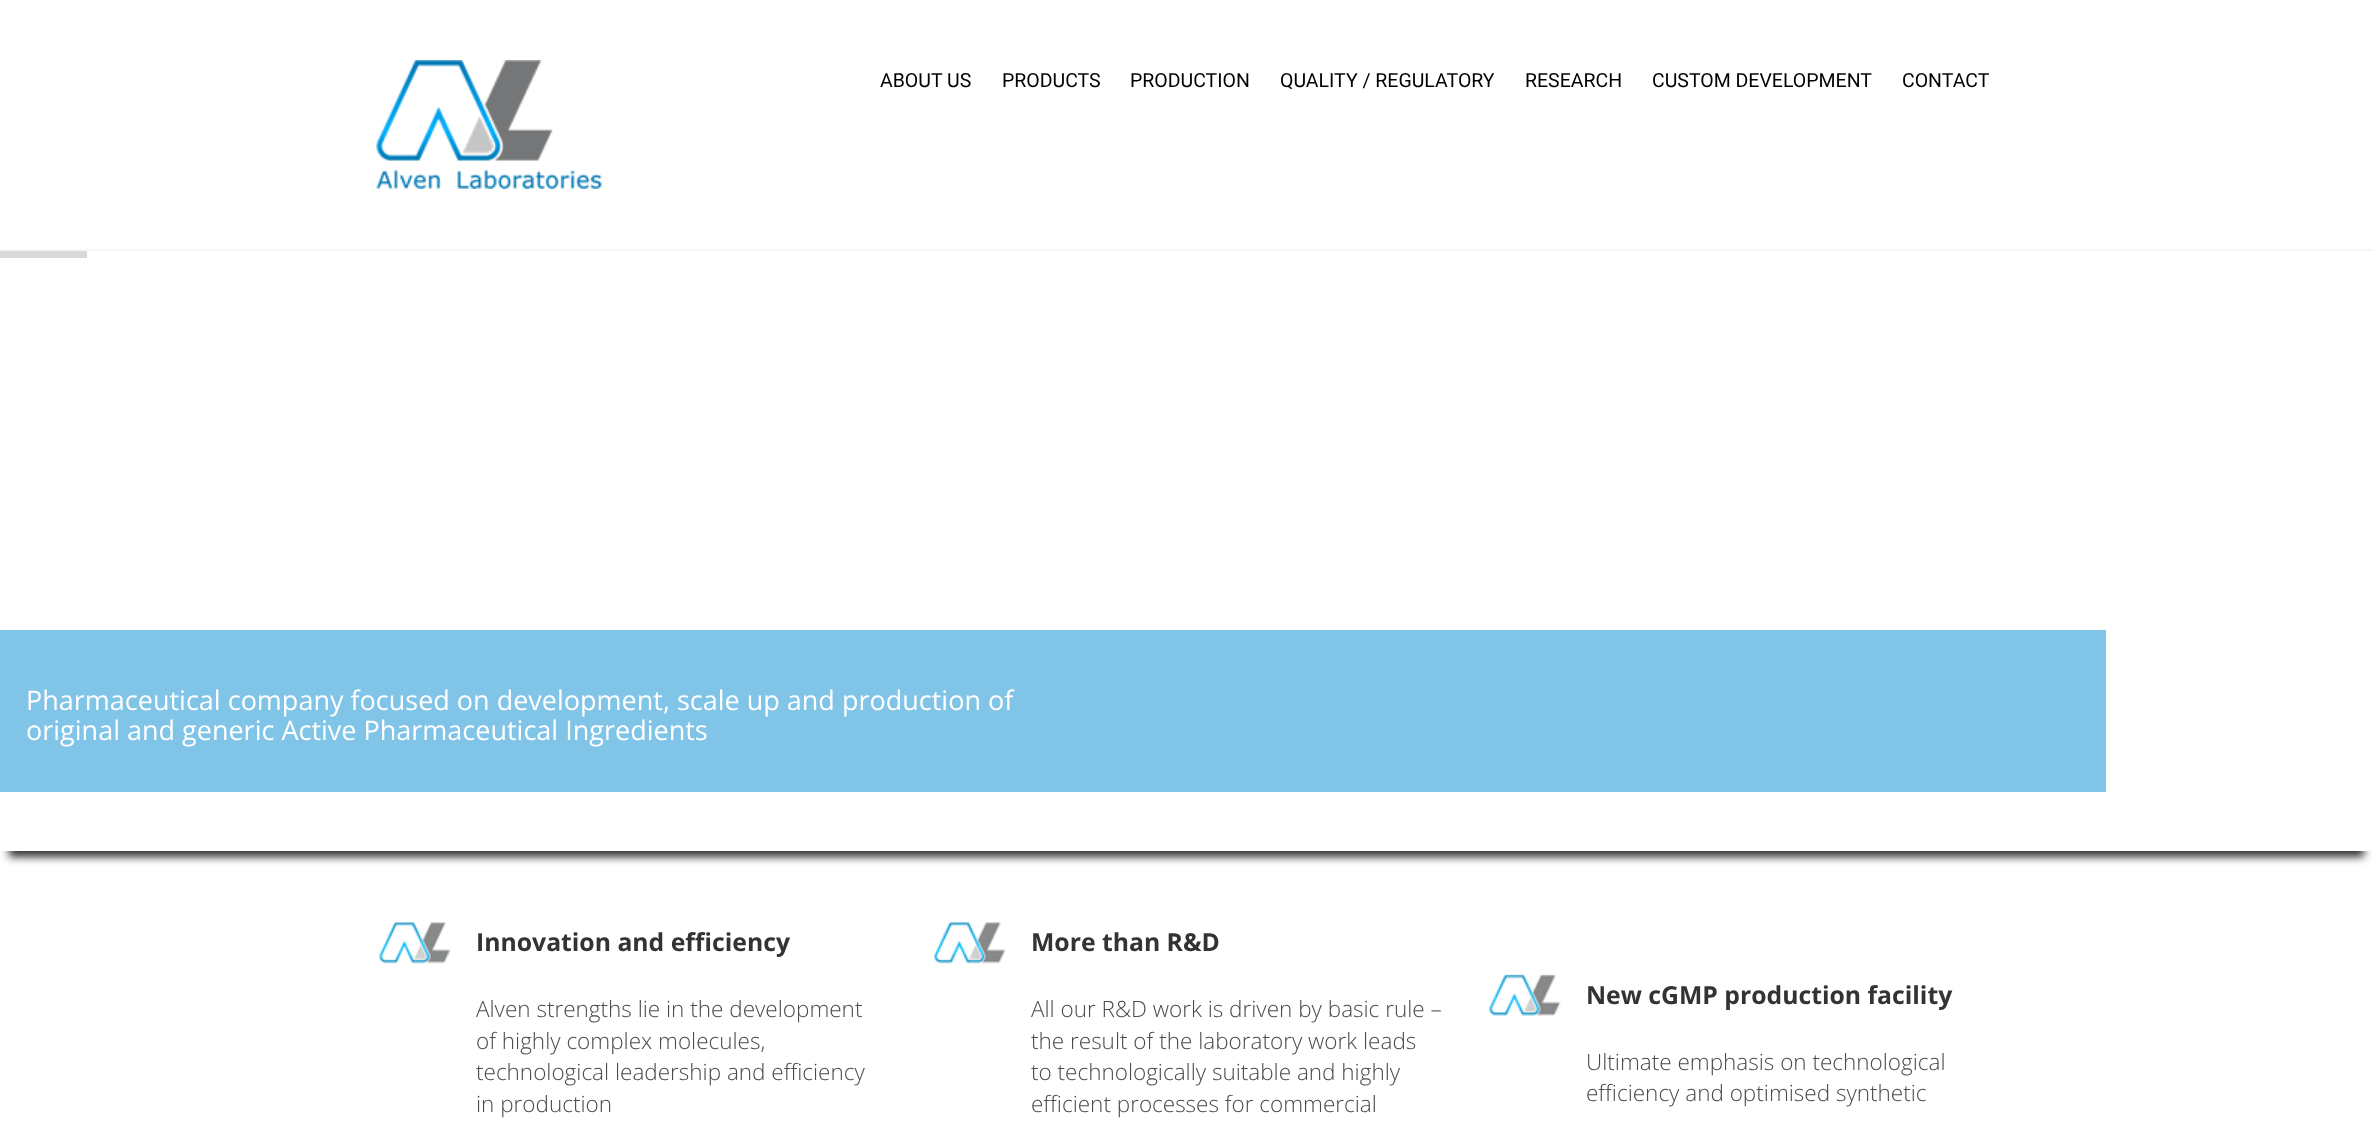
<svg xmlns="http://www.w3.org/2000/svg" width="2373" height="1127">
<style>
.a{font:19.5px Roboto;fill:#000}
.b{font:27px Open Sans;fill:#fff}
.c{font:bold 24.75px Open Sans;fill:#333}
.d{font:300 22.5px Open Sans;fill:#4b4b4b}
</style>
<defs>
<clipPath id="clip1"><path d="M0 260h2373v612h-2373zm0-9h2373v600h-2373z" clip-rule="evenodd"/></clipPath>
</defs>
<rect width="100%" height="100%" fill="#fff"/>
<path fill="#f6f6f6" d="M0 249h2373v2H0z"/>
<image href="1.png" x="376" y="60" width="226" height="129"/>
<g clip-path="url(#clip1)">
<path fill="#000000cc" filter="blur(4.5px)" d="M9 275h2355v582H9z"/>
</g>
<path fill="#d9d9d9" d="M0 251h87v7H0z"/>
<path fill="#80c4e7" d="M0 630h2106v162H0z"/>
<image href="2.png" x="379" y="922" width="72" height="45"/>
<image href="3.png" x="934" y="922" width="72" height="45"/>
<image href="4.png" x="1489" y="974" width="72" height="46"/>
<text class="a" x="880" y="87">ABOUT US</text>
<text class="a" x="1002" y="87">PRODUCTS</text>
<text class="a" x="1130" y="87">PRODUCTION</text>
<text class="a" x="1280" y="87">QUALITY / REGULATORY</text>
<text class="a" x="1525" y="87">RESEARCH</text>
<text class="a" x="1652" y="87">CUSTOM DEVELOPMENT</text>
<text class="a" x="1902" y="87">CONTACT</text>
<text class="b" x="26" y="710">Pharmaceutical company focused on development, scale up and production of</text>
<text class="b" x="26" y="740">original and generic Active Pharmaceutical Ingredients</text>
<text class="c" x="476" y="951">Innovation and efficiency</text>
<text class="d" x="476" y="1017">Alven strengths lie in the development</text>
<text class="d" x="476" y="1049">of highly complex molecules,</text>
<text class="d" x="476" y="1080">technological leadership and efficiency</text>
<text class="d" x="476" y="1112">in production</text>
<text class="c" x="1031" y="951">More than R&amp;D</text>
<text class="d" x="1031" y="1017">All our R&amp;D work is driven by basic rule –</text>
<text class="d" x="1031" y="1049">the result of the laboratory work leads</text>
<text class="d" x="1031" y="1080">to technologically suitable and highly</text>
<text class="d" x="1031" y="1112">efficient processes for commercial</text>
<text class="c" x="1586" y="1004">New cGMP production facility</text>
<text class="d" x="1586" y="1070">Ultimate emphasis on technological</text>
<text class="d" x="1586" y="1101">efficiency and optimised synthetic</text>
</svg>
